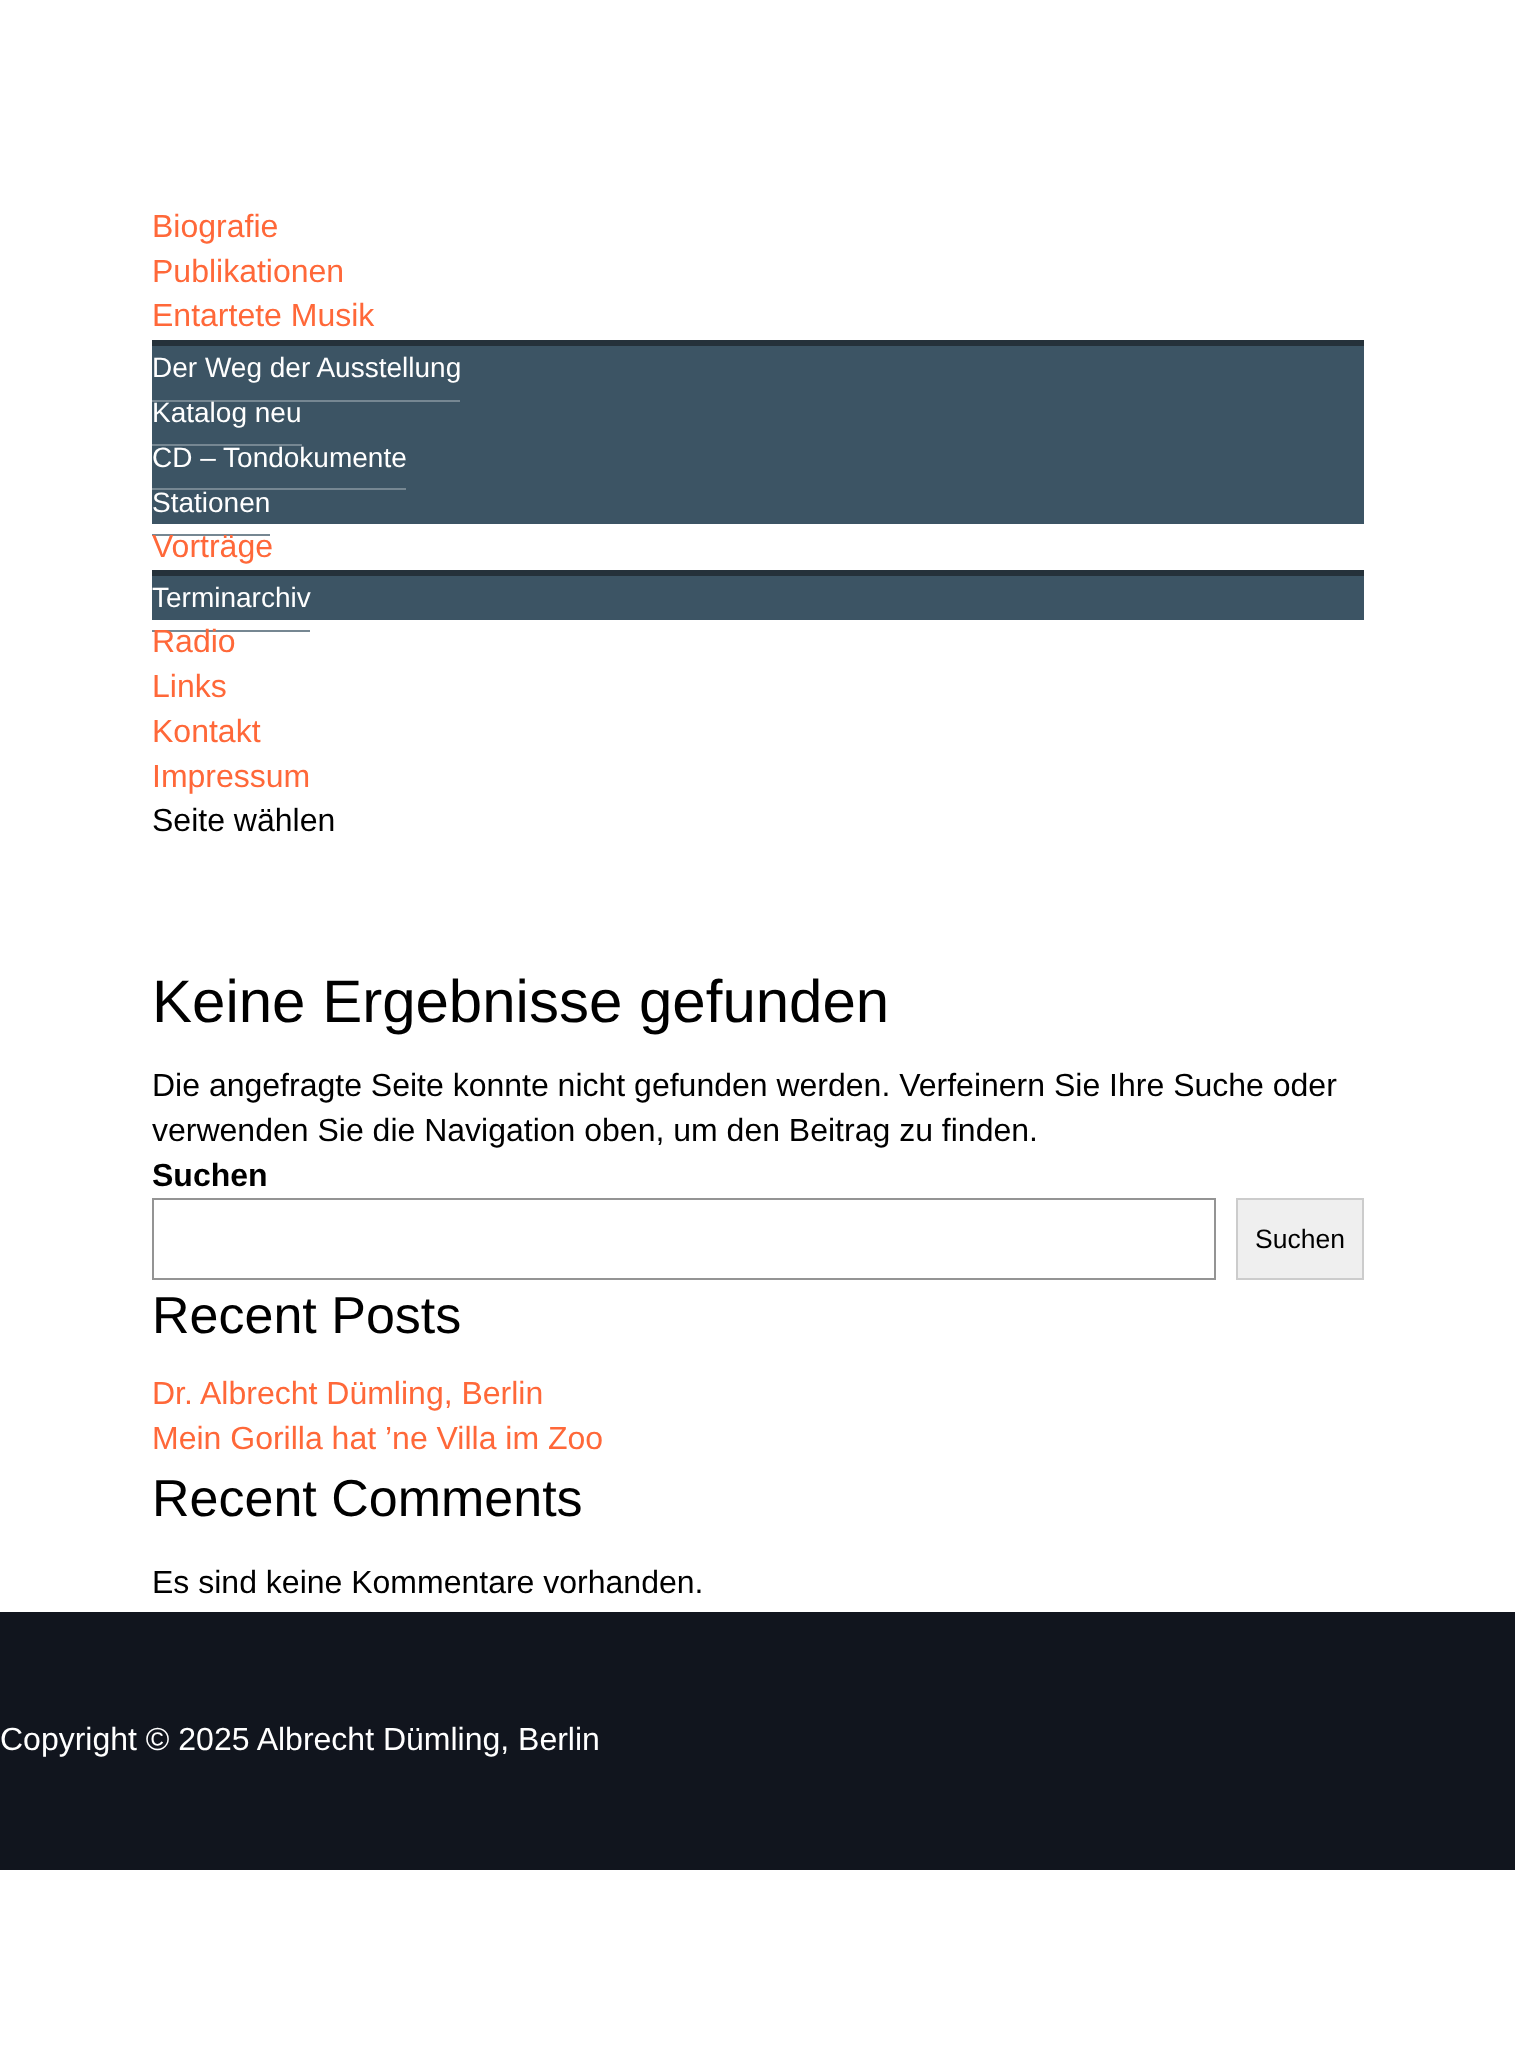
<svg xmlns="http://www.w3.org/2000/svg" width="1515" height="2070">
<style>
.a{font:32px Liberation Sans;fill:#ff6839}
.b{font:28px Liberation Sans;fill:#fff}
.c{font:32px Liberation Sans;fill:#000}
.d{font:60px Liberation Sans;fill:#000}
.e{font:bold 32px Liberation Sans;fill:#000}
.f{font:26.5px Liberation Sans;fill:#000}
.g{font:52px Liberation Sans;fill:#000}
.h{font:32px Liberation Sans;fill:#fff}
</style>
<rect width="100%" height="100%" fill="#fff"/>
<path fill="#3c5464" d="M152 346h1212v178H152z"/>
<path fill="#25313a" d="M152 340h1212v6H152z"/>
<path fill="#768792" d="M152 400h308v2H152z"/>
<path fill="#768792" d="M152 444h150v2H152z"/>
<path fill="#768792" d="M152 488h254v2H152z"/>
<path fill="#768792" d="M152 534h118v2H152z"/>
<path fill="#3c5464" d="M152 576h1212v44H152z"/>
<path fill="#25313a" d="M152 570h1212v6H152z"/>
<path fill="#768792" d="M152 630h158v2H152z"/>
<path fill="none" stroke="#949494" stroke-width="2" d="M153 1199h1062v80H153z"/>
<path fill="#efefef" stroke="#ccc" stroke-width="2" d="M1237 1199h126v80H1237z"/>
<path fill="#11151e" d="M0 1612h1515v258H0z"/>
<text class="a" x="152" y="237">Biografie</text>
<text class="a" x="152" y="282">Publikationen</text>
<text class="a" x="152" y="326">Entartete Musik</text>
<text class="b" x="152" y="377">Der Weg der Ausstellung</text>
<text class="b" x="152" y="422">Katalog neu</text>
<text class="b" x="152" y="467">CD – Tondokumente</text>
<text class="b" x="152" y="512">Stationen</text>
<text class="a" x="152" y="557">Vorträge</text>
<text class="b" x="152" y="607">Terminarchiv</text>
<text class="a" x="152" y="652">Radio</text>
<text class="a" x="152" y="697">Links</text>
<text class="a" x="152" y="742">Kontakt</text>
<text class="a" x="152" y="787">Impressum</text>
<text class="c" x="152" y="831">Seite wählen</text>
<text class="d" x="152" y="1022">Keine Ergebnisse gefunden</text>
<text class="c" x="152" y="1096">Die angefragte Seite konnte nicht gefunden werden. Verfeinern Sie Ihre Suche oder</text>
<text class="c" x="152" y="1141">verwenden Sie die Navigation oben, um den Beitrag zu finden.</text>
<text class="e" x="152" y="1186">Suchen</text>
<text class="f" x="1255" y="1248">Suchen</text>
<text class="g" x="152" y="1333">Recent Posts</text>
<text class="a" x="152" y="1404">Dr. Albrecht Dümling, Berlin</text>
<text class="a" x="152" y="1449">Mein Gorilla hat ’ne Villa im Zoo</text>
<text class="g" x="152" y="1516">Recent Comments</text>
<text class="c" x="152" y="1593">Es sind keine Kommentare vorhanden.</text>
<text class="h" x="0" y="1750">Copyright © 2025 Albrecht Dümling, Berlin</text>
</svg>
